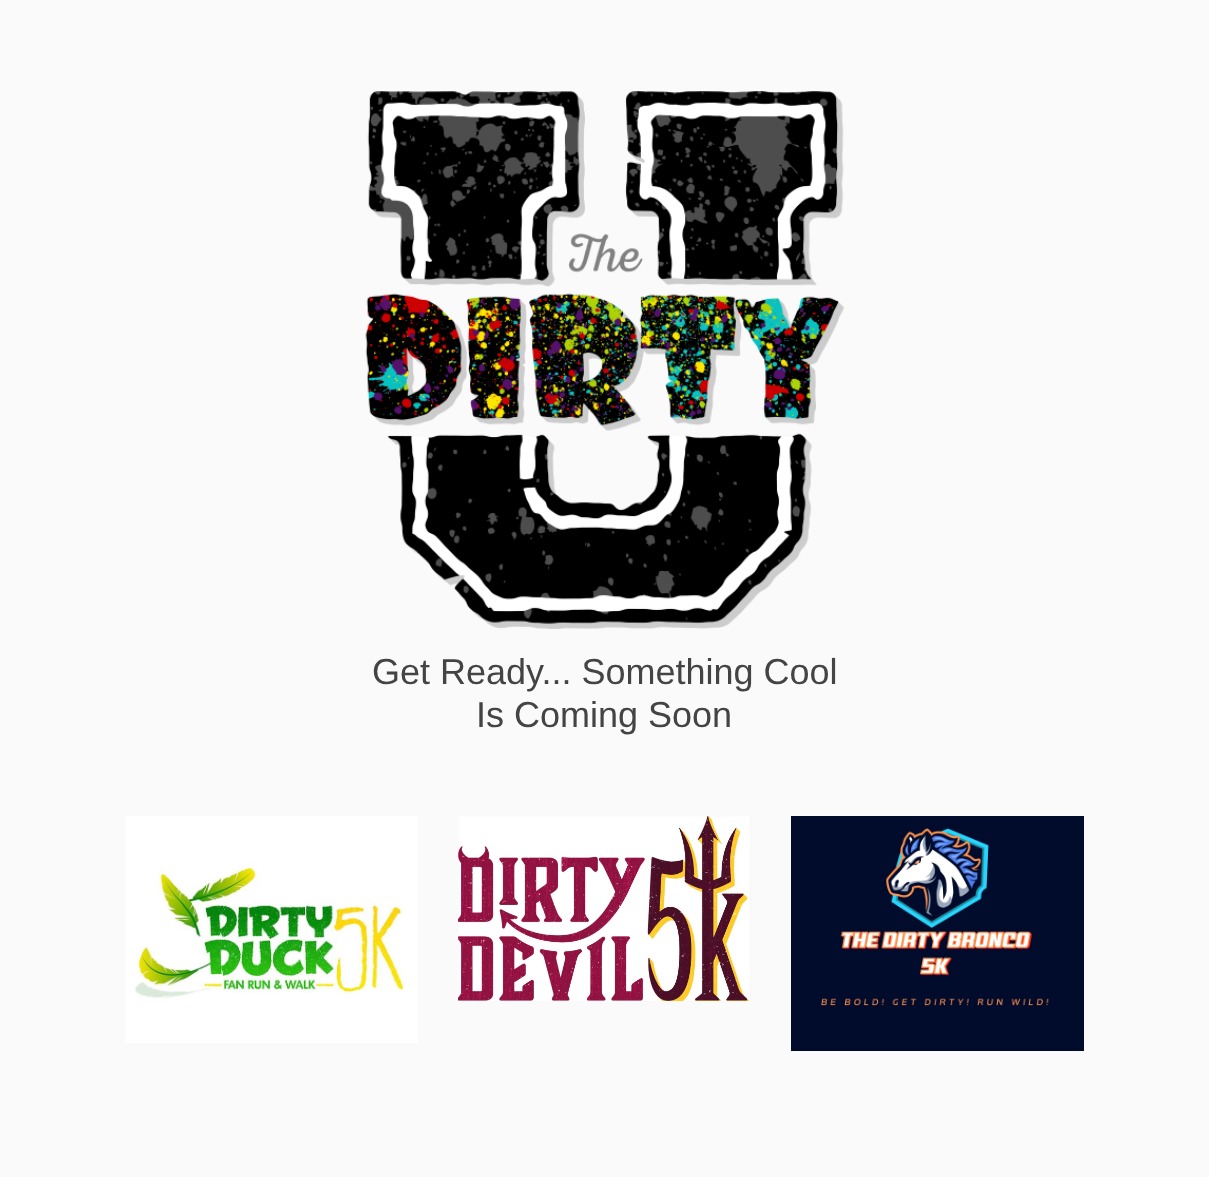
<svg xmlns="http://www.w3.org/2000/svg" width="1209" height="1177">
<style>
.a{font:36px Liberation Sans;fill:#444}
</style>
<rect width="100%" height="100%" fill="#fafafa"/>
<image href="1.png" x="365" y="91" width="480" height="538"/>
<image href="2.png" x="125" y="816" width="293" height="227"/>
<image href="3.png" x="458" y="816" width="293" height="185"/>
<image href="4.png" x="791" y="816" width="293" height="235"/>
<text class="a" x="372" y="684">Get Ready... Something Cool</text>
<text class="a" x="476" y="727">Is Coming Soon</text>
</svg>
